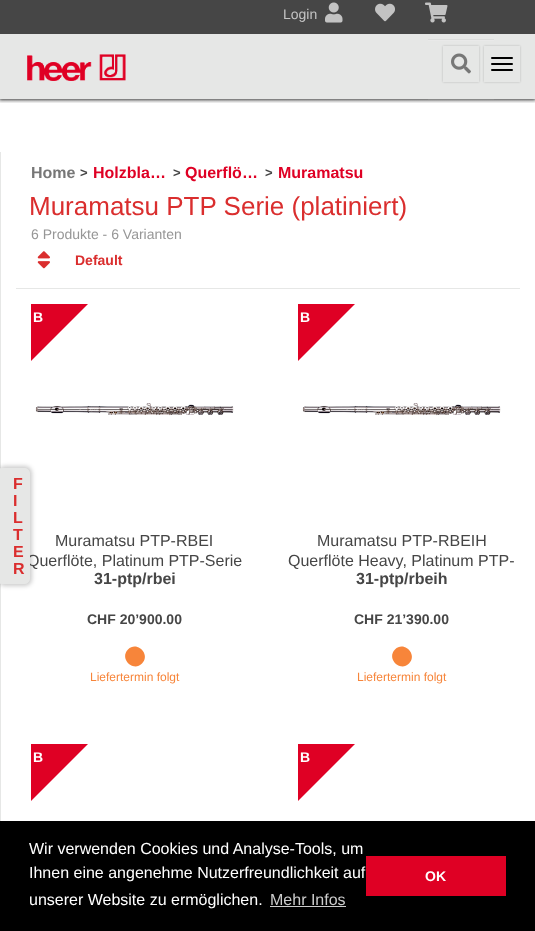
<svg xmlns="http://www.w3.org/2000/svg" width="535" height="931">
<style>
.a{font:14px Liberation Sans;fill:#c3c3c3}
.b{font:bold 16px Liberation Sans;fill:#777}
.c{font:bold 13px Liberation Sans;fill:#464646}
.d{font:bold 16px Liberation Sans;fill:#df0024}
.e{font:26px Liberation Sans;fill:#da2e2e}
.f{font:14px Liberation Sans;fill:#969696}
.g{font:bold 14px Liberation Sans;fill:#da2e2e}
.h{font:bold 14px Liberation Sans;fill:#fff}
.i{font:16px Liberation Sans;fill:#464646}
.j{font:bold 16px Liberation Sans;fill:#da2e2e}
.k{font:bold 16px Liberation Sans;fill:#464646}
.l{font:bold 14px Liberation Sans;fill:#464646}
.m{font:12px Liberation Sans;fill:#f7853a}
.n{font:16px Liberation Sans;fill:#fff}
.o{font:16px Liberation Sans;fill:#ccc}
</style>
<defs>
<clipPath id="clip1"><path d="M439 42h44v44h-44zm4 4h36v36h-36z" clip-rule="evenodd"/></clipPath>
<clipPath id="clip2"><path d="M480 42h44v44h-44zm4 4h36v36h-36z" clip-rule="evenodd"/></clipPath>
<linearGradient id="g1" gradientUnits="userSpaceOnUse" x1="268" y1="99" x2="268" y2="104"><stop offset="0" stop-color="#000" stop-opacity="0.2"/><stop offset="1" stop-color="#000" stop-opacity="0"/></linearGradient>
<clipPath id="clip3"><path d="M283 531h237v38H283z"/></clipPath>
</defs>
<rect width="100%" height="100%" fill="#fff"/>
<path fill="#323232bf" filter="blur(1.5px)" d="M0 35h535v65H0z"/>
<path fill="#464646" d="M0 0h535v34H0z"/>
<image href="1.png" x="325" y="2" width="18" height="21"/>
<image href="2.png" x="375" y="3" width="20" height="19"/>
<image href="3.png" x="425" y="2" width="23" height="21"/>
<path fill="#e6e7e6" d="M0 34h535v65H0z"/>
<image href="4.png" x="27" y="54" width="99" height="27"/>
<path fill="#a7a7a7" d="M428 99h66v1H428z"/>
<path fill="#e9e9e9" d="M428 40h66v1H428z"/>
<path fill="#dbdcdb" d="M428 39h66v1H428z"/>
<g clip-path="url(#clip1)">
<path fill="#00000033" filter="blur(1px)" d="M443 46h36v36H443z"/>
</g>
<image href="5.png" x="451" y="53" width="20" height="21"/>
<g clip-path="url(#clip2)">
<path fill="#00000033" filter="blur(1px)" d="M484 46h36v36H484z"/>
</g>
<rect fill="#000" x="491" y="57" width="22" height="2" rx="1"/>
<rect fill="#000" x="491" y="63" width="22" height="2" rx="1"/>
<rect fill="#000" x="491" y="69" width="22" height="2" rx="1"/>
<path fill="url(#g1)" d="M0 99h535v4H0z"/>
<path fill="#e6e7e6" d="M0 152h1v669H0z"/>
<rect fill="#00000033" filter="blur(2px)" x="-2" y="466" width="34" height="120" rx="7"/>
<path fill="#e6e7e6" d="M16 288h504v1H16z"/>
<image href="6.png" x="37" y="251" width="13" height="18"/>
<path fill="#df0024" d="M31 361v-57h57z"/>
<image href="7.png" x="35" y="403" width="199" height="13"/>
<path fill="#f7853a" d="M128 649.5c9-9 23 5 14 14c-9 9-23-5-14-14z"/>
<path fill="#df0024" d="M298 361v-57h57z"/>
<image href="8.png" x="302" y="403" width="199" height="13"/>
<path fill="#f7853a" d="M395 649.5c9-9 23 5 14 14c-9 9-23-5-14-14z"/>
<path fill="#df0024" d="M31 801v-57h57z"/>
<path fill="#df0024" d="M298 801v-57h57z"/>
<path fill="#000" d="M0 821h535v110H0z"/>
<path fill="#ccc" d="M270 906h76v1H270z"/>
<path fill="#df0024" d="M366 856h140v40H366z"/>
<text class="a" x="283" y="19">Login</text>
<text class="b" x="31" y="178">Home</text>
<text class="c" x="80" y="177">&gt;</text>
<text class="d" x="93" y="178">Holzbla…</text>
<text class="c" x="173" y="177">&gt;</text>
<text class="d" x="185" y="178">Querflö…</text>
<text class="c" x="265" y="177">&gt;</text>
<text class="d" x="278" y="178">Muramatsu</text>
<text class="e" x="29" y="215">Muramatsu PTP Serie (platiniert)</text>
<text class="f" x="31" y="239">6 Produkte - 6 Varianten</text>
<text class="g" x="75" y="265">Default</text>
<text class="h" x="33" y="322">B</text>
<text class="i" x="55" y="546">Muramatsu PTP-RBEI</text>
<text class="i" x="27" y="566">Querflöte, Platinum PTP-Serie</text>
<path fill="#e6e7e6" stroke="#e6e7e6" d="M.5 468.5h24.5c2.5 0 4.5 2 4.5 4.5v106c0 2.5-2 4.5-4.5 4.5h-24.5z"/>
<text class="j" x="13" y="574">R</text>
<text class="j" x="13" y="557">E</text>
<text class="j" x="13" y="540">T</text>
<text class="j" x="13" y="523">L</text>
<text class="j" x="13" y="506">I</text>
<text class="j" x="13" y="489">F</text>
<text class="k" x="94" y="584">31-ptp/rbei</text>
<text class="l" x="87" y="624">CHF 20’900.00</text>
<text class="m" x="90" y="681">Liefertermin folgt</text>
<text class="h" x="300" y="322">B</text>
<text class="i" x="317" y="546">Muramatsu PTP-RBEIH</text>
<g clip-path="url(#clip3)">
<text class="i" x="288" y="566">Querflöte Heavy, Platinum PTP-</text>
</g>
<text class="k" x="356" y="584">31-ptp/rbeih</text>
<text class="l" x="354" y="624">CHF 21’390.00</text>
<text class="m" x="357" y="681">Liefertermin folgt</text>
<text class="h" x="33" y="762">B</text>
<text class="h" x="300" y="762">B</text>
<text class="n" x="29" y="854">Wir verwenden Cookies und Analyse-Tools, um</text>
<text class="n" x="29" y="878">Ihnen eine angenehme Nutzerfreundlichkeit auf</text>
<text class="n" x="29" y="905">unserer Website zu ermöglichen.</text>
<text class="o" x="270" y="905">Mehr Infos</text>
<text class="h" x="425" y="881">OK</text>
</svg>
